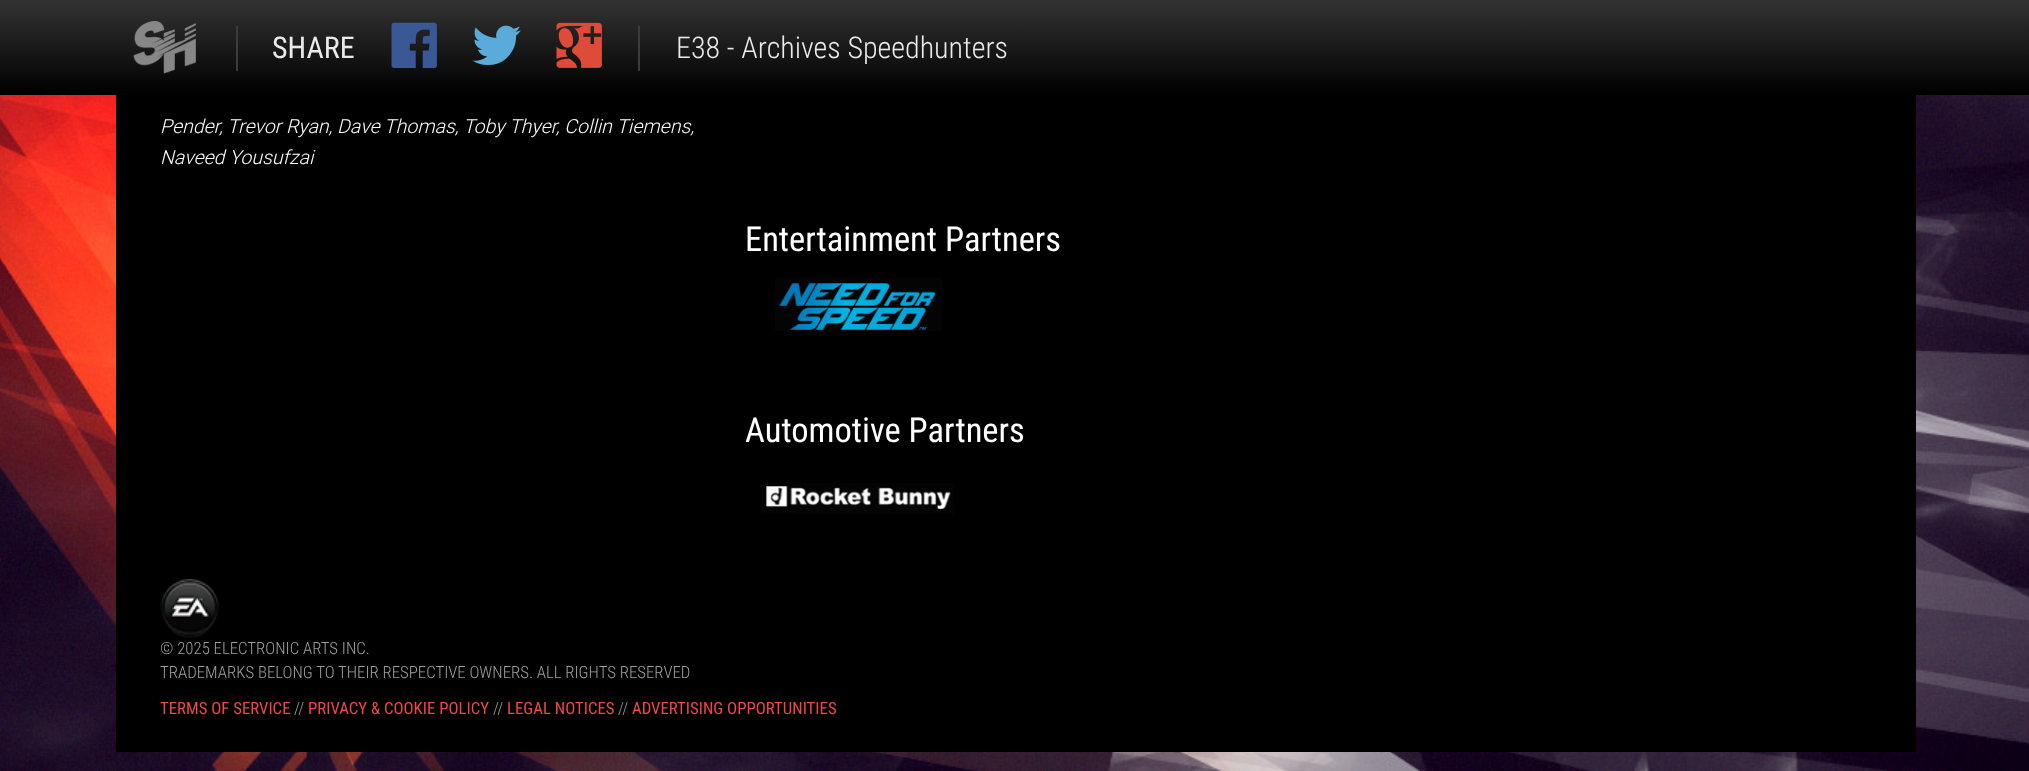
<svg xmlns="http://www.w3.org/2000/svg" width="2029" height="771">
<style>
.a{font:30px Roboto Condensed;fill:#eaeaea}
.b{font:300 30px Roboto Condensed;fill:#eaeaea}
.c{font:italic 300 19.5px Roboto;fill:#fff}
.d{font:34.5px Roboto Condensed;fill:#fff}
.e{font:300 16.8px Roboto Condensed;fill:#a0a0a0}
.f{font:16.8px Roboto Condensed;fill:#ee4848}
</style>
<defs>
<linearGradient id="g1" gradientUnits="userSpaceOnUse" x1="1015" y1="0" x2="1015" y2="95"><stop offset="0" stop-color="#333"/><stop offset="1" stop-color="#000"/></linearGradient>
</defs>
<rect width="100%" height="100%" fill="#fff"/>
<image href="1.png" x="0" y="95" width="2029" height="676"/>
<path fill="url(#g1)" d="M0 0h2029v95H0z"/>
<image href="2.png" x="133" y="21" width="63" height="53"/>
<path fill="#3c3c3c" d="M236 26h2v45H236z"/>
<image href="3.png" x="391" y="22" width="46" height="46"/>
<image href="4.png" x="472" y="25" width="49" height="41"/>
<image href="5.png" x="556" y="22" width="46" height="46"/>
<path fill="#3c3c3c" d="M638 26h2v45H638z"/>
<path fill="#000" d="M116 95h1800v657H116z"/>
<image href="6.png" x="775" y="277" width="167" height="54"/>
<image href="7.png" x="761" y="483" width="193" height="31"/>
<image href="8.png" x="160" y="579" width="59" height="59"/>
<text class="a" x="272" y="58">SHARE</text>
<text class="b" x="676" y="58">E38 - Archives Speedhunters</text>
<text class="c" x="160" y="133">Pender, Trevor Ryan, Dave Thomas, Toby Thyer, Collin Tiemens,</text>
<text class="c" x="160" y="164">Naveed Yousufzai</text>
<text class="d" x="745" y="251">Entertainment Partners</text>
<text class="d" x="745" y="442">Automotive Partners</text>
<text class="e" x="160" y="654">© 2025 ELECTRONIC ARTS INC.</text>
<text class="e" x="160" y="678">TRADEMARKS BELONG TO THEIR RESPECTIVE OWNERS. ALL RIGHTS RESERVED</text>
<text class="f" x="160" y="714">TERMS OF SERVICE</text>
<text class="e" x="294" y="714">//</text>
<text class="f" x="308" y="714">PRIVACY &amp; COOKIE POLICY</text>
<text class="e" x="493" y="714">//</text>
<text class="f" x="507" y="714">LEGAL NOTICES</text>
<text class="e" x="618" y="714">//</text>
<text class="f" x="632" y="714">ADVERTISING OPPORTUNITIES</text>
</svg>
